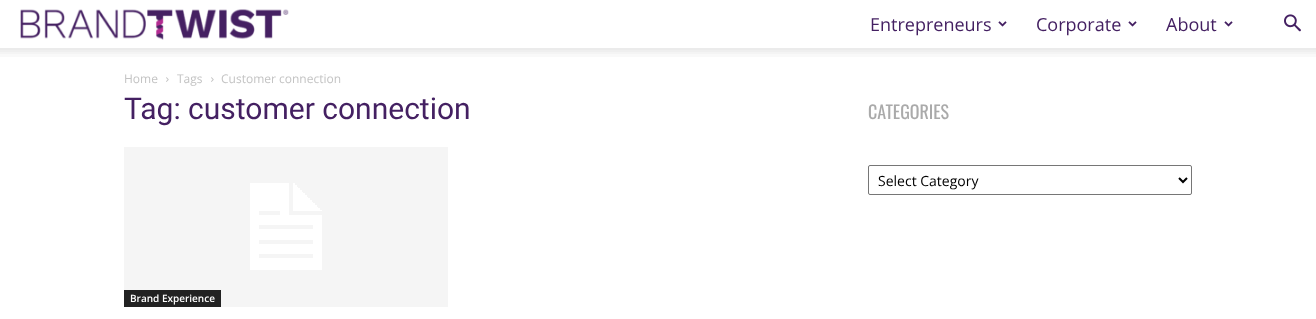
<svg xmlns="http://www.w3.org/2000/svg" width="1316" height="319">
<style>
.a{font:18px Open Sans;fill:#442062}
.b{font:12px Open Sans;fill:#c3c3c3}
.c{font:30px Roboto;fill:#442062}
.d{font:600 10px Open Sans;fill:#fff}
.e{font:18px Oswald;fill:#aaa}
.f{font:14px Open Sans;fill:#000}
</style>
<rect width="100%" height="100%" fill="#fff"/>
<image href="1.png" x="20" y="9" width="269" height="31"/>
<image href="2.png" x="998" y="21" width="9" height="6"/>
<image href="2.png" x="1128" y="21" width="9" height="6"/>
<image href="2.png" x="1224" y="21" width="9" height="6"/>
<image href="3.png" x="1284" y="14" width="17" height="18"/>
<image href="4.png" x="0" y="48" width="1316" height="9"/>
<image href="5.png" x="166" y="77" width="3" height="5"/>
<image href="5.png" x="211" y="77" width="3" height="5"/>
<image href="6.png" x="124" y="147" width="324" height="160"/>
<path fill="#222" d="M124 290h97v17H124z"/>
<rect fill="none" stroke="#767676" x="868.5" y="165.5" width="323" height="29" rx="1.5"/>
<path fill="none" stroke="#000" stroke-width="2" d="M1179 178l4 4l4-4"/>
<text class="a" x="870" y="31">Entrepreneurs</text>
<text class="a" x="1036" y="31">Corporate</text>
<text class="a" x="1166" y="31">About</text>
<text class="b" x="124" y="83">Home</text>
<text class="b" x="177" y="83">Tags</text>
<text class="b" x="221" y="83">Customer connection</text>
<text class="c" x="124" y="119">Tag: customer connection</text>
<text class="d" x="130" y="302">Brand Experience</text>
<text class="e" x="868" y="119">CATEGORIES</text>
<text class="f" x="878" y="186">Select Category</text>
</svg>
